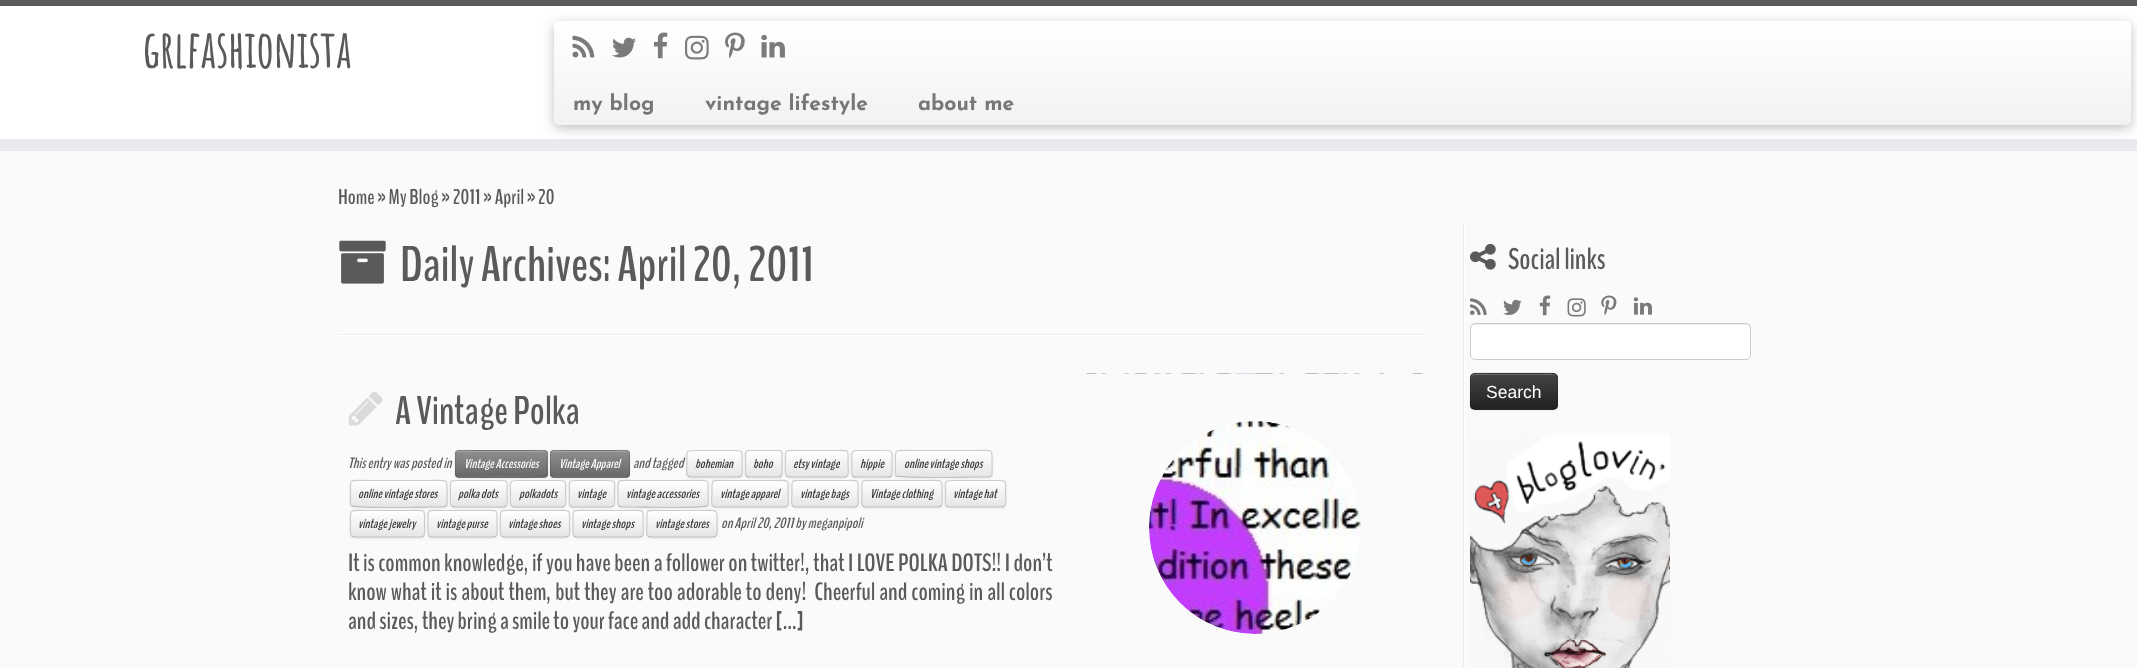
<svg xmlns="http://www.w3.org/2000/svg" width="2137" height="668">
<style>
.a{font:bold 50px Amatic SC;fill:#5a5a5a}
.b{font:100 21.25px Josefin Sans;fill:#777}
.c{font:bold 21.25px BenchNine;fill:#5a5a5a}
.d{font:bold 50px BenchNine;fill:#5a5a5a}
.e{font:bold 40px BenchNine;fill:#5a5a5a}
.f{font:italic bold 15px BenchNine;fill:#5a5a5a}
.g{font:italic bold 13px BenchNine;fill:#fff}
.h{font:italic bold 13px BenchNine;fill:#333}
.i{font:bold 25px BenchNine;fill:#5a5a5a}
.j{font:bold 30px BenchNine;fill:#5a5a5a}
.k{font:17.5px Liberation Sans;fill:#fff}
</style>
<defs>
<linearGradient id="g1" gradientUnits="userSpaceOnUse" x1="1343" y1="21" x2="1343" y2="125"><stop offset="0" stop-color="#fff"/><stop offset="1" stop-color="#f2f2f2"/></linearGradient>
<clipPath id="clip1"><rect x="455" y="450" width="93" height="28" rx="4"/></clipPath>
<linearGradient id="g2" gradientUnits="userSpaceOnUse" x1="501" y1="451" x2="501" y2="476"><stop offset="0" stop-color="#8f8f8f"/><stop offset="1" stop-color="#696969"/></linearGradient>
<clipPath id="clip2"><rect x="550" y="450" width="80" height="28" rx="4"/></clipPath>
<linearGradient id="g3" gradientUnits="userSpaceOnUse" x1="590" y1="451" x2="590" y2="476"><stop offset="0" stop-color="#8f8f8f"/><stop offset="1" stop-color="#696969"/></linearGradient>
<clipPath id="clip3"><rect x="686" y="450" width="57" height="28" rx="4"/></clipPath>
<linearGradient id="g4" gradientUnits="userSpaceOnUse" x1="714" y1="451" x2="714" y2="476"><stop offset="0" stop-color="#fff"/><stop offset="1" stop-color="#e6e6e6"/></linearGradient>
<clipPath id="clip4"><rect x="745" y="450" width="38" height="28" rx="4"/></clipPath>
<linearGradient id="g5" gradientUnits="userSpaceOnUse" x1="764" y1="451" x2="764" y2="476"><stop offset="0" stop-color="#fff"/><stop offset="1" stop-color="#e6e6e6"/></linearGradient>
<clipPath id="clip5"><rect x="785" y="450" width="64" height="28" rx="4"/></clipPath>
<linearGradient id="g6" gradientUnits="userSpaceOnUse" x1="817" y1="451" x2="817" y2="476"><stop offset="0" stop-color="#fff"/><stop offset="1" stop-color="#e6e6e6"/></linearGradient>
<clipPath id="clip6"><rect x="851" y="450" width="42" height="28" rx="4"/></clipPath>
<linearGradient id="g7" gradientUnits="userSpaceOnUse" x1="872" y1="451" x2="872" y2="476"><stop offset="0" stop-color="#fff"/><stop offset="1" stop-color="#e6e6e6"/></linearGradient>
<clipPath id="clip7"><rect x="895" y="450" width="98" height="28" rx="4"/></clipPath>
<linearGradient id="g8" gradientUnits="userSpaceOnUse" x1="944" y1="451" x2="944" y2="476"><stop offset="0" stop-color="#fff"/><stop offset="1" stop-color="#e6e6e6"/></linearGradient>
<clipPath id="clip8"><rect x="350" y="480" width="98" height="28" rx="4"/></clipPath>
<linearGradient id="g9" gradientUnits="userSpaceOnUse" x1="399" y1="481" x2="399" y2="506"><stop offset="0" stop-color="#fff"/><stop offset="1" stop-color="#e6e6e6"/></linearGradient>
<clipPath id="clip9"><rect x="450" y="480" width="58" height="28" rx="4"/></clipPath>
<linearGradient id="g10" gradientUnits="userSpaceOnUse" x1="479" y1="481" x2="479" y2="506"><stop offset="0" stop-color="#fff"/><stop offset="1" stop-color="#e6e6e6"/></linearGradient>
<clipPath id="clip10"><rect x="510" y="480" width="56" height="28" rx="4"/></clipPath>
<linearGradient id="g11" gradientUnits="userSpaceOnUse" x1="538" y1="481" x2="538" y2="506"><stop offset="0" stop-color="#fff"/><stop offset="1" stop-color="#e6e6e6"/></linearGradient>
<clipPath id="clip11"><rect x="569" y="480" width="46" height="28" rx="4"/></clipPath>
<linearGradient id="g12" gradientUnits="userSpaceOnUse" x1="592" y1="481" x2="592" y2="506"><stop offset="0" stop-color="#fff"/><stop offset="1" stop-color="#e6e6e6"/></linearGradient>
<clipPath id="clip12"><rect x="618" y="480" width="91" height="28" rx="4"/></clipPath>
<linearGradient id="g13" gradientUnits="userSpaceOnUse" x1="663" y1="481" x2="663" y2="506"><stop offset="0" stop-color="#fff"/><stop offset="1" stop-color="#e6e6e6"/></linearGradient>
<clipPath id="clip13"><rect x="711" y="480" width="78" height="28" rx="4"/></clipPath>
<linearGradient id="g14" gradientUnits="userSpaceOnUse" x1="750" y1="481" x2="750" y2="506"><stop offset="0" stop-color="#fff"/><stop offset="1" stop-color="#e6e6e6"/></linearGradient>
<clipPath id="clip14"><rect x="791" y="480" width="68" height="28" rx="4"/></clipPath>
<linearGradient id="g15" gradientUnits="userSpaceOnUse" x1="825" y1="481" x2="825" y2="506"><stop offset="0" stop-color="#fff"/><stop offset="1" stop-color="#e6e6e6"/></linearGradient>
<clipPath id="clip15"><rect x="861" y="480" width="82" height="28" rx="4"/></clipPath>
<linearGradient id="g16" gradientUnits="userSpaceOnUse" x1="902" y1="481" x2="902" y2="506"><stop offset="0" stop-color="#fff"/><stop offset="1" stop-color="#e6e6e6"/></linearGradient>
<clipPath id="clip16"><rect x="945" y="480" width="61" height="28" rx="4"/></clipPath>
<linearGradient id="g17" gradientUnits="userSpaceOnUse" x1="976" y1="481" x2="976" y2="506"><stop offset="0" stop-color="#fff"/><stop offset="1" stop-color="#e6e6e6"/></linearGradient>
<clipPath id="clip17"><rect x="350" y="510" width="75" height="28" rx="4"/></clipPath>
<linearGradient id="g18" gradientUnits="userSpaceOnUse" x1="388" y1="511" x2="388" y2="536"><stop offset="0" stop-color="#fff"/><stop offset="1" stop-color="#e6e6e6"/></linearGradient>
<clipPath id="clip18"><rect x="428" y="510" width="70" height="28" rx="4"/></clipPath>
<linearGradient id="g19" gradientUnits="userSpaceOnUse" x1="463" y1="511" x2="463" y2="536"><stop offset="0" stop-color="#fff"/><stop offset="1" stop-color="#e6e6e6"/></linearGradient>
<clipPath id="clip19"><rect x="500" y="510" width="70" height="28" rx="4"/></clipPath>
<linearGradient id="g20" gradientUnits="userSpaceOnUse" x1="535" y1="511" x2="535" y2="536"><stop offset="0" stop-color="#fff"/><stop offset="1" stop-color="#e6e6e6"/></linearGradient>
<clipPath id="clip20"><rect x="573" y="510" width="71" height="28" rx="4"/></clipPath>
<linearGradient id="g21" gradientUnits="userSpaceOnUse" x1="608" y1="511" x2="608" y2="536"><stop offset="0" stop-color="#fff"/><stop offset="1" stop-color="#e6e6e6"/></linearGradient>
<clipPath id="clip21"><rect x="646" y="510" width="72" height="28" rx="4"/></clipPath>
<linearGradient id="g22" gradientUnits="userSpaceOnUse" x1="682" y1="511" x2="682" y2="536"><stop offset="0" stop-color="#fff"/><stop offset="1" stop-color="#e6e6e6"/></linearGradient>
<clipPath id="clip22"><rect x="1470" y="373" width="88" height="37" rx="5"/></clipPath>
<linearGradient id="g23" gradientUnits="userSpaceOnUse" x1="1514" y1="374" x2="1514" y2="409"><stop offset="0" stop-color="#444"/><stop offset="1" stop-color="#222"/></linearGradient>
<clipPath id="clip23"><path d="M1086 374h337v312H1086z"/></clipPath>
</defs>
<rect width="100%" height="100%" fill="#fafafa"/>
<path fill="#fff" d="M0 6h2137v133H0z"/>
<path fill="#5a5a5a" d="M0 0h2137v6H0z"/>
<path fill="#e9eaee" d="M0 139h2137v12H0z"/>
<rect fill="#00000040" filter="blur(6px)" x="554" y="24" width="1577" height="104" rx="5"/>
<rect fill="url(#g1)" x="554" y="21" width="1577" height="104" rx="5"/>
<image href="1.png" x="572" y="35" width="23" height="23"/>
<image href="2.png" x="612" y="37" width="24" height="21"/>
<image href="3.png" x="653" y="32" width="15" height="27"/>
<image href="4.png" x="685" y="35" width="24" height="25"/>
<image href="5.png" x="725" y="32" width="20" height="27"/>
<image href="6.png" x="761" y="34" width="24" height="24"/>
<image href="7.png" x="339" y="240" width="47" height="44"/>
<path fill="#eee" d="M338 334h1087v1H338z"/>
<path fill="#fff" d="M338 335h1087v1H338z"/>
<image href="8.png" x="348" y="391" width="35" height="35"/>
<rect fill="#0000000d" filter="blur(1px)" x="455" y="451" width="93" height="28" rx="4"/>
<rect fill="#808080" x="455" y="450" width="93" height="28" rx="4"/>
<g clip-path="url(#clip1)">
<path fill="url(#g2)" d="M455 451h93v25H455z"/>
</g>
<path fill="#ffffff33" d="M459 452h85c1 0 2 2 2 3c0-8-11-4-17-4h-56c-6 0-17-4-17 4c0-1 1-3 3-3z"/>
<path fill="none" stroke="#00000040" stroke-width="1.2" d="M546 476h-.5c-2 2-64.5 1-72.5 1h-14l-2.5-1"/>
<path fill="none" stroke="#0000001a" stroke-width="1.2" d="M456.5 476c-2-2-1-6.5-1-9c0-19.5-3-16.5 17.5-16.5h56.5c20.5 0 17.5-3 17.5 16.5c0 2.5 1 7-1 9"/>
<rect fill="#0000000d" filter="blur(1px)" x="550" y="451" width="80" height="28" rx="4"/>
<rect fill="#808080" x="550" y="450" width="80" height="28" rx="4"/>
<g clip-path="url(#clip2)">
<path fill="url(#g3)" d="M550 451h80v25H550z"/>
</g>
<path fill="#ffffff33" d="M554 452h72c2 0 3 2 3 3c0-7-9-4-15-4h-48c-6 0-15-3-15 4c0-1 1-3 3-3z"/>
<path fill="none" stroke="#00000040" stroke-width="1.2" d="M628.5 476l-2 1h-73l-2-1"/>
<path fill="none" stroke="#0000001a" stroke-width="1.2" d="M551.5 476c-2-2-1-6.5-1-9c0-18.5-3.5-16.5 15.5-16.5h48c17.5 0 15.5-2.5 15.5 13.5c0 2.5 1 10-1 12"/>
<rect fill="#0000000d" filter="blur(1px)" x="686" y="451" width="57" height="28" rx="4"/>
<rect fill="#f5f5f5" x="686" y="450" width="57" height="28" rx="4"/>
<g clip-path="url(#clip3)">
<path fill="url(#g4)" d="M686 451h57v25H686z"/>
</g>
<path fill="#fff" d="M690 452h49c1 0 2 2 2 3c0-6-5-4-11-4h-32c-5 0-10-2-10 4c0-1 1-3 2-3z"/>
<path fill="none" stroke="#b3b3b3" stroke-width="1.2" d="M741 476l-2 1h-49.5l-1.5-1"/>
<path fill="none" stroke="#ccc" stroke-width="1.2" d="M688 476c-2.5-2-1-9.5-1-12c0-14-2.5-13.5 11-13.5h32.5c14 0 11.5-.5 11.5 13.5c0 2.5 1 10-1 12"/>
<rect fill="#0000000d" filter="blur(1px)" x="745" y="451" width="38" height="28" rx="4"/>
<rect fill="#f5f5f5" x="745" y="450" width="38" height="28" rx="4"/>
<g clip-path="url(#clip4)">
<path fill="url(#g5)" d="M745 451h38v25H745z"/>
</g>
<path fill="none" stroke="#b3b3b3" stroke-width="1.2" d="M781 476c-.5 .5-1.5 1-2 1h-30c-1 0-2-.5-2.5-1"/>
<path fill="none" stroke="#ccc" stroke-width="1.2" d="M746.5 476c-.5-.5-1-1.5-1-2v-20c0-1 .5-2 1-2.5c.5-.5 1.5-1 2.5-1h30c.5 0 1.5 .5 2 1c.5 .5 1 1.5 1 2.5v20c0 .5-.5 1.5-1 2"/>
<rect fill="#0000000d" filter="blur(1px)" x="785" y="451" width="64" height="28" rx="4"/>
<rect fill="#f5f5f5" x="785" y="450" width="64" height="28" rx="4"/>
<g clip-path="url(#clip5)">
<path fill="url(#g6)" d="M785 451h64v25H785z"/>
</g>
<path fill="#fff" d="M789 452h56c1 0 3 2 3 3c0-6-6-4-12-4h-38c-6 0-12-2-12 4c0-1 1-3 3-3z"/>
<path fill="none" stroke="#b3b3b3" stroke-width="1.2" d="M847 476l-1.5 1h-57l-2-1"/>
<path fill="none" stroke="#ccc" stroke-width="1.2" d="M786.5 476c-2-2-1-9.5-1-12c0-15-2-13.5 12.5-13.5h37.5c15 0 12.5-1.5 12.5 13.5c0 2.5 1.5 10-1 12"/>
<rect fill="#0000000d" filter="blur(1px)" x="851" y="451" width="42" height="28" rx="4"/>
<rect fill="#f5f5f5" x="851" y="450" width="42" height="28" rx="4"/>
<g clip-path="url(#clip6)">
<path fill="url(#g7)" d="M851 451h42v25H851z"/>
</g>
<path fill="none" stroke="#b3b3b3" stroke-width="1.2" d="M891 476c-.5 .5-1.5 1-2 1h-34c-1 0-1.5-.5-2-1"/>
<path fill="none" stroke="#ccc" stroke-width="1.2" d="M853 476c-2.5-2-1-9.5-1-12c0-12-3-13.5 8.5-13.5h22.5c11.5 0 9 1.5 9 13.5c0 2.5 1 10-1 12"/>
<rect fill="#0000000d" filter="blur(1px)" x="895" y="451" width="98" height="28" rx="4"/>
<rect fill="#f5f5f5" x="895" y="450" width="98" height="28" rx="4"/>
<g clip-path="url(#clip7)">
<path fill="url(#g8)" d="M895 451h98v25H895z"/>
</g>
<path fill="none" stroke="#b3b3b3" stroke-width="1.2" d="M991 476l-2 1h-15c-8.5 0-75 1-77-1h-.5"/>
<path fill="none" stroke="#ccc" stroke-width="1.2" d="M896.5 476c-2-2-1-6.5-1-9c0-20-3-16.5 18.5-16.5h60c21 0 18-3.5 18 16.5c0 2.5 1 7-1 9"/>
<rect fill="#0000000d" filter="blur(1px)" x="350" y="481" width="98" height="28" rx="4"/>
<rect fill="#f5f5f5" x="350" y="480" width="98" height="28" rx="4"/>
<g clip-path="url(#clip8)">
<path fill="url(#g9)" d="M350 481h98v25H350z"/>
</g>
<path fill="none" stroke="#b3b3b3" stroke-width="1.2" d="M446 506l-2 1h-15c-8.5 0-75 1-77-1h-.5"/>
<path fill="none" stroke="#ccc" stroke-width="1.2" d="M351.5 506c-2-2-1-6.5-1-9c0-20-3-16.5 18.5-16.5h60c21 0 18-3.5 18 16.5c0 2.5 1 7-1 9"/>
<rect fill="#0000000d" filter="blur(1px)" x="450" y="481" width="58" height="28" rx="4"/>
<rect fill="#f5f5f5" x="450" y="480" width="58" height="28" rx="4"/>
<g clip-path="url(#clip9)">
<path fill="url(#g10)" d="M450 481h58v25H450z"/>
</g>
<path fill="#fff" d="M454 482h50c1 0 2 2 2 3c0-6-5-4-11-4h-33c-6 0-11-2-11 4c0-1 1-3 3-3z"/>
<path fill="none" stroke="#b3b3b3" stroke-width="1.2" d="M506 506l-2 1h-50.5l-2-1"/>
<path fill="none" stroke="#ccc" stroke-width="1.2" d="M451.5 506c-2-2-1-9.5-1-12c0-14.5-2.5-13.5 11.5-13.5h33.5c14 0 11.5-1 11.5 13.5c0 2.5 1 10-1 12"/>
<rect fill="#0000000d" filter="blur(1px)" x="510" y="481" width="56" height="28" rx="4"/>
<rect fill="#f5f5f5" x="510" y="480" width="56" height="28" rx="4"/>
<g clip-path="url(#clip10)">
<path fill="url(#g11)" d="M510 481h56v25H510z"/>
</g>
<path fill="#fff" d="M514 482h48c2 0 3 2 3 3c0-6-5-4-11-4h-32c-6 0-11-2-11 4c0-1 1-3 3-3z"/>
<path fill="none" stroke="#b3b3b3" stroke-width="1.2" d="M564.5 506l-1.5 1h-49.5l-2-1"/>
<path fill="none" stroke="#ccc" stroke-width="1.2" d="M511.5 506c-2-2-1-9.5-1-12c0-14-2.5-13.5 11.5-13.5h32.5c13.5 0 11-.5 11 13.5c0 2.5 1.5 10-1 12"/>
<rect fill="#0000000d" filter="blur(1px)" x="569" y="481" width="46" height="28" rx="4"/>
<rect fill="#f5f5f5" x="569" y="480" width="46" height="28" rx="4"/>
<g clip-path="url(#clip11)">
<path fill="url(#g12)" d="M569 481h46v25H569z"/>
</g>
<path fill="none" stroke="#b3b3b3" stroke-width="1.2" d="M613.5 506l-2.5 1h-38.5l-2-1"/>
<path fill="none" stroke="#ccc" stroke-width="1.2" d="M570.5 506c-2.5-2-1-9.5-1-12c0-13-2.5-13.5 9.5-13.5h26c12 0 9.5 .5 9.5 13.5c0 2.5 1 10-1 12"/>
<rect fill="#0000000d" filter="blur(1px)" x="618" y="481" width="91" height="28" rx="4"/>
<rect fill="#f5f5f5" x="618" y="480" width="91" height="28" rx="4"/>
<g clip-path="url(#clip12)">
<path fill="url(#g13)" d="M618 481h91v25H618z"/>
</g>
<path fill="none" stroke="#b3b3b3" stroke-width="1.2" d="M707 506c-2 2-64 1-72 1h-14l-2-1"/>
<path fill="none" stroke="#ccc" stroke-width="1.2" d="M619 506c-2-2-1-6.5-1-9c0-19.5-3-16.5 17-16.5h56c20.5 0 17-3 17 16.5c0 2.5 1.5 7-1 9"/>
<rect fill="#0000000d" filter="blur(1px)" x="711" y="481" width="78" height="28" rx="4"/>
<rect fill="#f5f5f5" x="711" y="480" width="78" height="28" rx="4"/>
<g clip-path="url(#clip13)">
<path fill="url(#g14)" d="M711 481h78v25H711z"/>
</g>
<path fill="none" stroke="#b3b3b3" stroke-width="1.2" d="M787 506l-1.5 1h-71l-1.5-1"/>
<path fill="none" stroke="#ccc" stroke-width="1.2" d="M713 506c-2.5-2-1-9.5-1-12c0-16-2-13.5 14.5-13.5h47c18 0 14.5-2 14.5 16.5c0 2.5 1.5 7-1 9"/>
<rect fill="#0000000d" filter="blur(1px)" x="791" y="481" width="68" height="28" rx="4"/>
<rect fill="#f5f5f5" x="791" y="480" width="68" height="28" rx="4"/>
<g clip-path="url(#clip14)">
<path fill="url(#g15)" d="M791 481h68v25H791z"/>
</g>
<path fill="none" stroke="#b3b3b3" stroke-width="1.2" d="M857 506l-1.5 1h-61l-1.5-1"/>
<path fill="none" stroke="#ccc" stroke-width="1.2" d="M793 506c-2.5-2-1-9.5-1-12c0-15-2.5-13.5 13-13.5h40c15.5 0 13-1.5 13 13.5c0 2.5 1.5 10-1 12"/>
<rect fill="#0000000d" filter="blur(1px)" x="861" y="481" width="82" height="28" rx="4"/>
<rect fill="#f5f5f5" x="861" y="480" width="82" height="28" rx="4"/>
<g clip-path="url(#clip15)">
<path fill="url(#g16)" d="M861 481h82v25H861z"/>
</g>
<path fill="none" stroke="#b3b3b3" stroke-width="1.2" d="M941 506l-2 1h-74.5l-1.5-1"/>
<path fill="none" stroke="#ccc" stroke-width="1.2" d="M863 506c-2.5-2-1-6.5-1-9c0-18.5-3.5-16.5 15.5-16.5h49c17.5 0 15.5-2.5 15.5 13.5c0 2.5 1 10-1 12"/>
<rect fill="#0000000d" filter="blur(1px)" x="945" y="481" width="61" height="28" rx="4"/>
<rect fill="#f5f5f5" x="945" y="480" width="61" height="28" rx="4"/>
<g clip-path="url(#clip16)">
<path fill="url(#g17)" d="M945 481h61v25H945z"/>
</g>
<path fill="#fff" d="M949 482h53c2 0 3 2 3 3c0-6-6-4-11-4h-36c-6 0-12-2-12 4c0-1 1-3 3-3z"/>
<path fill="none" stroke="#b3b3b3" stroke-width="1.2" d="M1004.5 506l-1.5 1h-54.5l-2-1"/>
<path fill="none" stroke="#ccc" stroke-width="1.2" d="M946.5 506c-2-2-1-9.5-1-12c0-14.5-2-13.5 12-13.5h36c14.5 0 12-1 12 13.5c0 2.5 1.5 10-1 12"/>
<rect fill="#0000000d" filter="blur(1px)" x="350" y="511" width="75" height="28" rx="4"/>
<rect fill="#f5f5f5" x="350" y="510" width="75" height="28" rx="4"/>
<g clip-path="url(#clip17)">
<path fill="url(#g18)" d="M350 511h75v25H350z"/>
</g>
<path fill="none" stroke="#b3b3b3" stroke-width="1.2" d="M423.5 536l-2 1h-68l-2-1"/>
<path fill="none" stroke="#ccc" stroke-width="1.2" d="M351.5 536c-2-2-1-9.5-1-12c0-15.5-2-13.5 14.5-13.5h45c16.5 0 14.5-2 14.5 13.5c0 2.5 1 10-1 12"/>
<rect fill="#0000000d" filter="blur(1px)" x="428" y="511" width="70" height="28" rx="4"/>
<rect fill="#f5f5f5" x="428" y="510" width="70" height="28" rx="4"/>
<g clip-path="url(#clip18)">
<path fill="url(#g19)" d="M428 511h70v25H428z"/>
</g>
<path fill="none" stroke="#b3b3b3" stroke-width="1.2" d="M496 536l-2 1h-63l-2-1"/>
<path fill="none" stroke="#ccc" stroke-width="1.2" d="M429 536c-2-2-1-9.5-1-12c0-15.5-2-13.5 13.5-13.5h42c15.5 0 13.5-2 13.5 13.5c0 2.5 1 10-1 12"/>
<rect fill="#0000000d" filter="blur(1px)" x="500" y="511" width="70" height="28" rx="4"/>
<rect fill="#f5f5f5" x="500" y="510" width="70" height="28" rx="4"/>
<g clip-path="url(#clip19)">
<path fill="url(#g20)" d="M500 511h70v25H500z"/>
</g>
<path fill="none" stroke="#b3b3b3" stroke-width="1.2" d="M568.5 536l-2.5 1h-62l-2.5-1"/>
<path fill="none" stroke="#ccc" stroke-width="1.2" d="M501.5 536c-2-2-1-9.5-1-12c0-15.5-2-13.5 13.5-13.5h42c15.5 0 13.5-2 13.5 13.5c0 2.5 1 10-1 12"/>
<rect fill="#0000000d" filter="blur(1px)" x="573" y="511" width="71" height="28" rx="4"/>
<rect fill="#f5f5f5" x="573" y="510" width="71" height="28" rx="4"/>
<g clip-path="url(#clip20)">
<path fill="url(#g21)" d="M573 511h71v25H573z"/>
</g>
<path fill="#ffffff33" d="M576 512h53c14 0 13-2 13 10v14c1-1 1-2 1-2v-20c0-2-1-3-3-3h-64c-1 0-2 1-2 3v1c0-1 1-3 2-3z"/>
<path fill="none" stroke="#b3b3b3" stroke-width="1.2" d="M642 536l-2 1h-64l-2-1"/>
<path fill="none" stroke="#ccc" stroke-width="1.2" d="M574 536c-2-2-1-9.5-1-12c0-15.5-2-13.5 14-13.5h42.5c16 0 13.5-2 13.5 13.5c0 2.5 1.5 10-1 12"/>
<rect fill="#0000000d" filter="blur(1px)" x="646" y="511" width="72" height="28" rx="4"/>
<rect fill="#f5f5f5" x="646" y="510" width="72" height="28" rx="4"/>
<g clip-path="url(#clip21)">
<path fill="url(#g22)" d="M646 511h72v25H646z"/>
</g>
<path fill="none" stroke="#b3b3b3" stroke-width="1.2" d="M716 536l-2 1h-64l-2-1"/>
<path fill="none" stroke="#ccc" stroke-width="1.2" d="M648 536c-2.5-2-1-9.5-1-12c0-15.5-2.5-13.5 13.5-13.5h42.5c16 0 14-2 14 13.5c0 2.5 1 10-1 12"/>
<image href="9.png" x="1086" y="373" width="337" height="261"/>
<path fill="#eee" d="M1463 224h1v444H1463z"/>
<path fill="#fff" d="M1464 224h1v444H1464z"/>
<image href="10.png" x="1470" y="243" width="26" height="27"/>
<image href="11.png" x="1470" y="298" width="17" height="17"/>
<image href="12.png" x="1503" y="299" width="19" height="16"/>
<image href="13.png" x="1539" y="295" width="12" height="21"/>
<image href="14.png" x="1567" y="298" width="19" height="19"/>
<image href="15.png" x="1601" y="295" width="16" height="21"/>
<image href="16.png" x="1633" y="297" width="19" height="18"/>
<rect fill="#fff" x="1470" y="323" width="281" height="37" rx="5"/>
<path fill="#ececec" d="M1475 325h271c2 0 4 2 4 4c0-3-1-5-4-5h-271c-3 0-4 2-4 5c0-2 2-4 4-4z"/>
<rect fill="none" stroke="#ccc" x="1470.5" y="323.5" width="280" height="36" rx="4.5"/>
<rect fill="#0000000d" filter="blur(1px)" x="1470" y="374" width="88" height="37" rx="5"/>
<rect fill="#363636" x="1470" y="373" width="88" height="37" rx="5"/>
<g clip-path="url(#clip22)">
<path fill="url(#g23)" d="M1470 374h88v35H1470z"/>
</g>
<path fill="#ffffff33" d="M1475 375h77c3 0 4 2 4 4c0-8-12-5-17-5h-51c-5 0-17-3-17 5c0-2 2-4 4-4z"/>
<path fill="none" stroke="#00000040" stroke-width="1.2" d="M1555.5 408l-2.5 1.5h-78.5l-2.5-1.5"/>
<path fill="none" stroke="#0000001a" stroke-width="1.2" d="M1472 408c-2-2-1.5-5-1.5-7.5v-9.5c0-20-3-18 17.5-18h51.5c20.5 0 17.5-2 17.5 18v9.5c0 2.5 .5 5.5-1.5 7.5"/>
<image href="17.png" x="1470" y="435" width="200" height="233"/>
<text class="a" x="142" y="68">grlfashionista</text>
<text class="b" x="573" y="110">my blog</text>
<text class="b" x="705" y="110">vintage lifestyle</text>
<text class="b" x="918" y="110">about me</text>
<text class="c" x="338" y="204">Home » My Blog » 2011 » April » 20</text>
<text class="d" x="400" y="281">Daily Archives: April 20, 2011</text>
<text class="e" x="395" y="424">A Vintage Polka</text>
<text class="f" x="348" y="468">This entry was posted in</text>
<text class="g" x="464" y="468">Vintage Accessories</text>
<text class="g" x="559" y="468">Vintage Apparel</text>
<text class="f" x="633" y="468">and tagged</text>
<text class="h" x="695" y="468">bohemian</text>
<text class="h" x="753" y="468">boho</text>
<text class="h" x="793" y="468">etsy vintage</text>
<text class="h" x="860" y="468">hippie</text>
<text class="h" x="904" y="468">online vintage shops</text>
<text class="h" x="358" y="498">online vintage stores</text>
<text class="h" x="458" y="498">polka dots</text>
<text class="h" x="519" y="498">polkadots</text>
<text class="h" x="577" y="498">vintage</text>
<text class="h" x="626" y="498">vintage accessories</text>
<text class="h" x="720" y="498">vintage apparel</text>
<text class="h" x="800" y="498">vintage bags</text>
<text class="h" x="870" y="498">Vintage clothing</text>
<text class="h" x="953" y="498">vintage hat</text>
<text class="h" x="358" y="528">vintage jewelry</text>
<text class="h" x="436" y="528">vintage purse</text>
<text class="h" x="508" y="528">vintage shoes</text>
<text class="h" x="581" y="528">vintage shops</text>
<text class="h" x="655" y="528">vintage stores</text>
<text class="f" x="721" y="528">on April 20, 2011 by meganpipoli</text>
<text class="i" x="348" y="571" word-spacing="0.25">It is common knowledge, if you have been a follower on twitter!, that I LOVE POLKA DOTS!! I don’t</text>
<text class="i" xml:space="preserve" x="348" y="600" word-spacing="0.8">know what it is about them, but they are too adorable to deny!  Cheerful and coming in all colors</text>
<text class="i" x="348" y="629">and sizes, they bring a smile to your face and add character […]</text>
<text class="j" x="1508" y="269">Social links</text>
<text class="k" x="1486" y="398">Search</text>
<g clip-path="url(#clip23)">
<rect fill="none" stroke="#fafafa" stroke-width="130" x="1084" y="356" width="342" height="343" rx="171"/>
<rect fill="none" stroke="#fafafa" stroke-width="130" x="1084" y="356" width="342" height="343" rx="171"/>
</g>
</svg>
